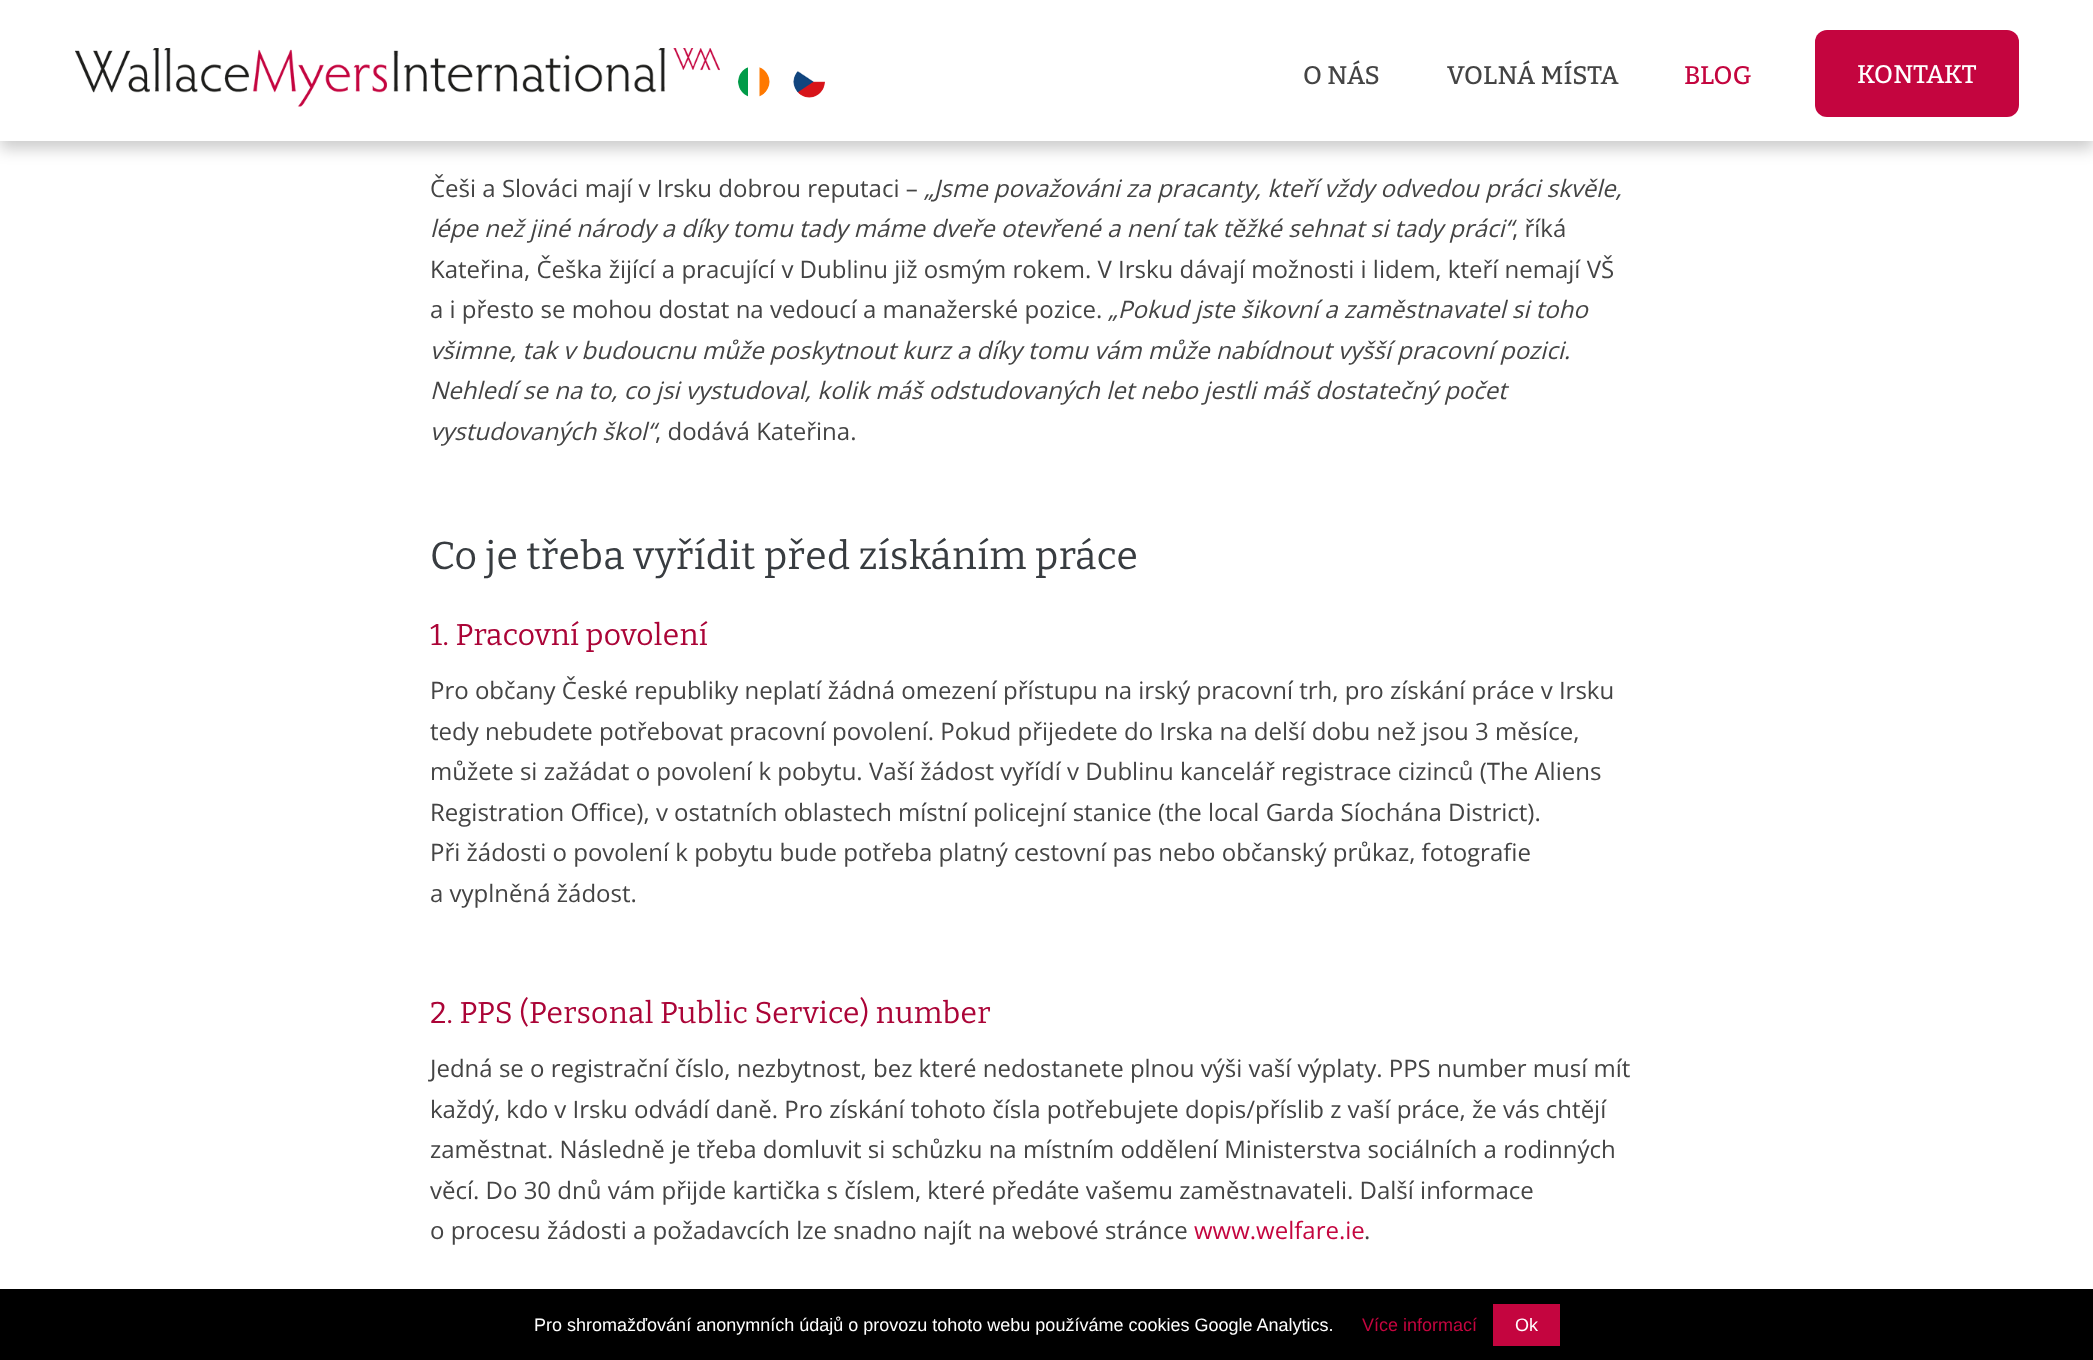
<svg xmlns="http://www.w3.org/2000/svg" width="2093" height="1360">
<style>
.a{font:500 25.5px Bitter;letter-spacing:0.25px;fill:#444}
.b{font:500 25.5px Bitter;letter-spacing:0.25px;fill:#c4053f}
.c{font:500 25.5px Bitter;letter-spacing:0.25px;fill:#fff}
.d{font:24px Open Sans;fill:#444}
.e{font:italic 24px Open Sans;fill:#444}
.f{font:39px Bitter;letter-spacing:0.4px;fill:#383c40}
.g{font:30px Bitter;letter-spacing:0.3px;fill:#ab0437}
.h{font:24px Open Sans;fill:#c4053f}
.i{font:18px Liberation Sans;fill:#fff}
.j{font:18px Liberation Sans;fill:#c4053f}
</style>
<rect width="100%" height="100%" fill="#fff"/>
<path fill="#00000033" filter="blur(7.5px)" d="M0 8h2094v141H0z"/>
<path fill="#fff" d="M0 0h2093v141H0z"/>
<image href="1.png" x="75" y="48" width="645" height="59"/>
<image href="2.png" x="738" y="67" width="32" height="30"/>
<image href="3.png" x="793" y="71" width="32" height="27"/>
<rect fill="#c4053f" x="1815" y="30" width="204" height="87" rx="12"/>
<path fill="#000" d="M0 1289h2093v71H0z"/>
<path fill="#c4053f" d="M1493 1304h67v42H1493z"/>
<text class="a" x="1303" y="84">O NÁS</text>
<text class="a" x="1447" y="84">VOLNÁ MÍSTA</text>
<text class="b" x="1684" y="84">BLOG</text>
<text class="c" x="1857" y="83">KONTAKT</text>
<text class="d" x="430" y="197">Češi a Slováci mají v Irsku dobrou reputaci –</text>
<text class="e" x="924" y="197">„Jsme považováni za pracanty, kteří vždy odvedou práci skvěle,</text>
<text class="e" x="430" y="237">lépe než jiné národy a díky tomu tady máme dveře otevřené a není tak těžké sehnat si tady práci“</text>
<text class="d" x="1512" y="237">, říká</text>
<text class="d" x="430" y="278">Kateřina, Češka žijící a pracující v Dublinu již osmým rokem. V Irsku dávají možnosti i lidem, kteří nemají VŠ</text>
<text class="d" x="430" y="318">a i přesto se mohou dostat na vedoucí a manažerské pozice.</text>
<text class="e" x="1108" y="318">„Pokud jste šikovní a zaměstnavatel si toho</text>
<text class="e" x="430" y="359">všimne, tak v budoucnu může poskytnout kurz a díky tomu vám může nabídnout vyšší pracovní pozici.</text>
<text class="e" x="430" y="399">Nehledí se na to, co jsi vystudoval, kolik máš odstudovaných let nebo jestli máš dostatečný počet</text>
<text class="e" x="430" y="440">vystudovaných škol“</text>
<text class="d" x="655" y="440">, dodává Kateřina.</text>
<text class="f" x="430" y="569">Co je třeba vyřídit před získáním práce</text>
<text class="g" x="430" y="645">1. Pracovní povolení</text>
<text class="d" x="430" y="699">Pro občany České republiky neplatí žádná omezení přístupu na irský pracovní trh, pro získání práce v Irsku</text>
<text class="d" x="430" y="740">tedy nebudete potřebovat pracovní povolení. Pokud přijedete do Irska na delší dobu než jsou 3 měsíce,</text>
<text class="d" x="430" y="780">můžete si zažádat o povolení k pobytu. Vaší žádost vyřídí v Dublinu kancelář registrace cizinců (The Aliens</text>
<text class="d" x="430" y="821">Registration Office), v ostatních oblastech místní policejní stanice (the local Garda Síochána District).</text>
<text class="d" x="430" y="861">Při žádosti o povolení k pobytu bude potřeba platný cestovní pas nebo občanský průkaz, fotografie</text>
<text class="d" x="430" y="902">a vyplněná žádost.</text>
<text class="g" x="430" y="1023">2. PPS (Personal Public Service) number</text>
<text class="d" x="430" y="1077">Jedná se o registrační číslo, nezbytnost, bez které nedostanete plnou výši vaší výplaty. PPS number musí mít</text>
<text class="d" x="430" y="1118">každý, kdo v Irsku odvádí daně. Pro získání tohoto čísla potřebujete dopis/příslib z vaší práce, že vás chtějí</text>
<text class="d" x="430" y="1158">zaměstnat. Následně je třeba domluvit si schůzku na místním oddělení Ministerstva sociálních a rodinných</text>
<text class="d" x="430" y="1199">věcí. Do 30 dnů vám přijde kartička s číslem, které předáte vašemu zaměstnavateli. Další informace</text>
<text class="d" x="430" y="1239">o procesu žádosti a požadavcích lze snadno najít na webové stránce</text>
<text class="h" x="1194" y="1239">www.welfare.ie</text>
<text class="d" x="1364" y="1239">.</text>
<text class="i" x="534" y="1331">Pro shromažďování anonymních údajů o provozu tohoto webu používáme cookies Google Analytics.</text>
<text class="j" x="1362" y="1331">Více informací</text>
<text class="i" x="1515" y="1331">Ok</text>
</svg>
